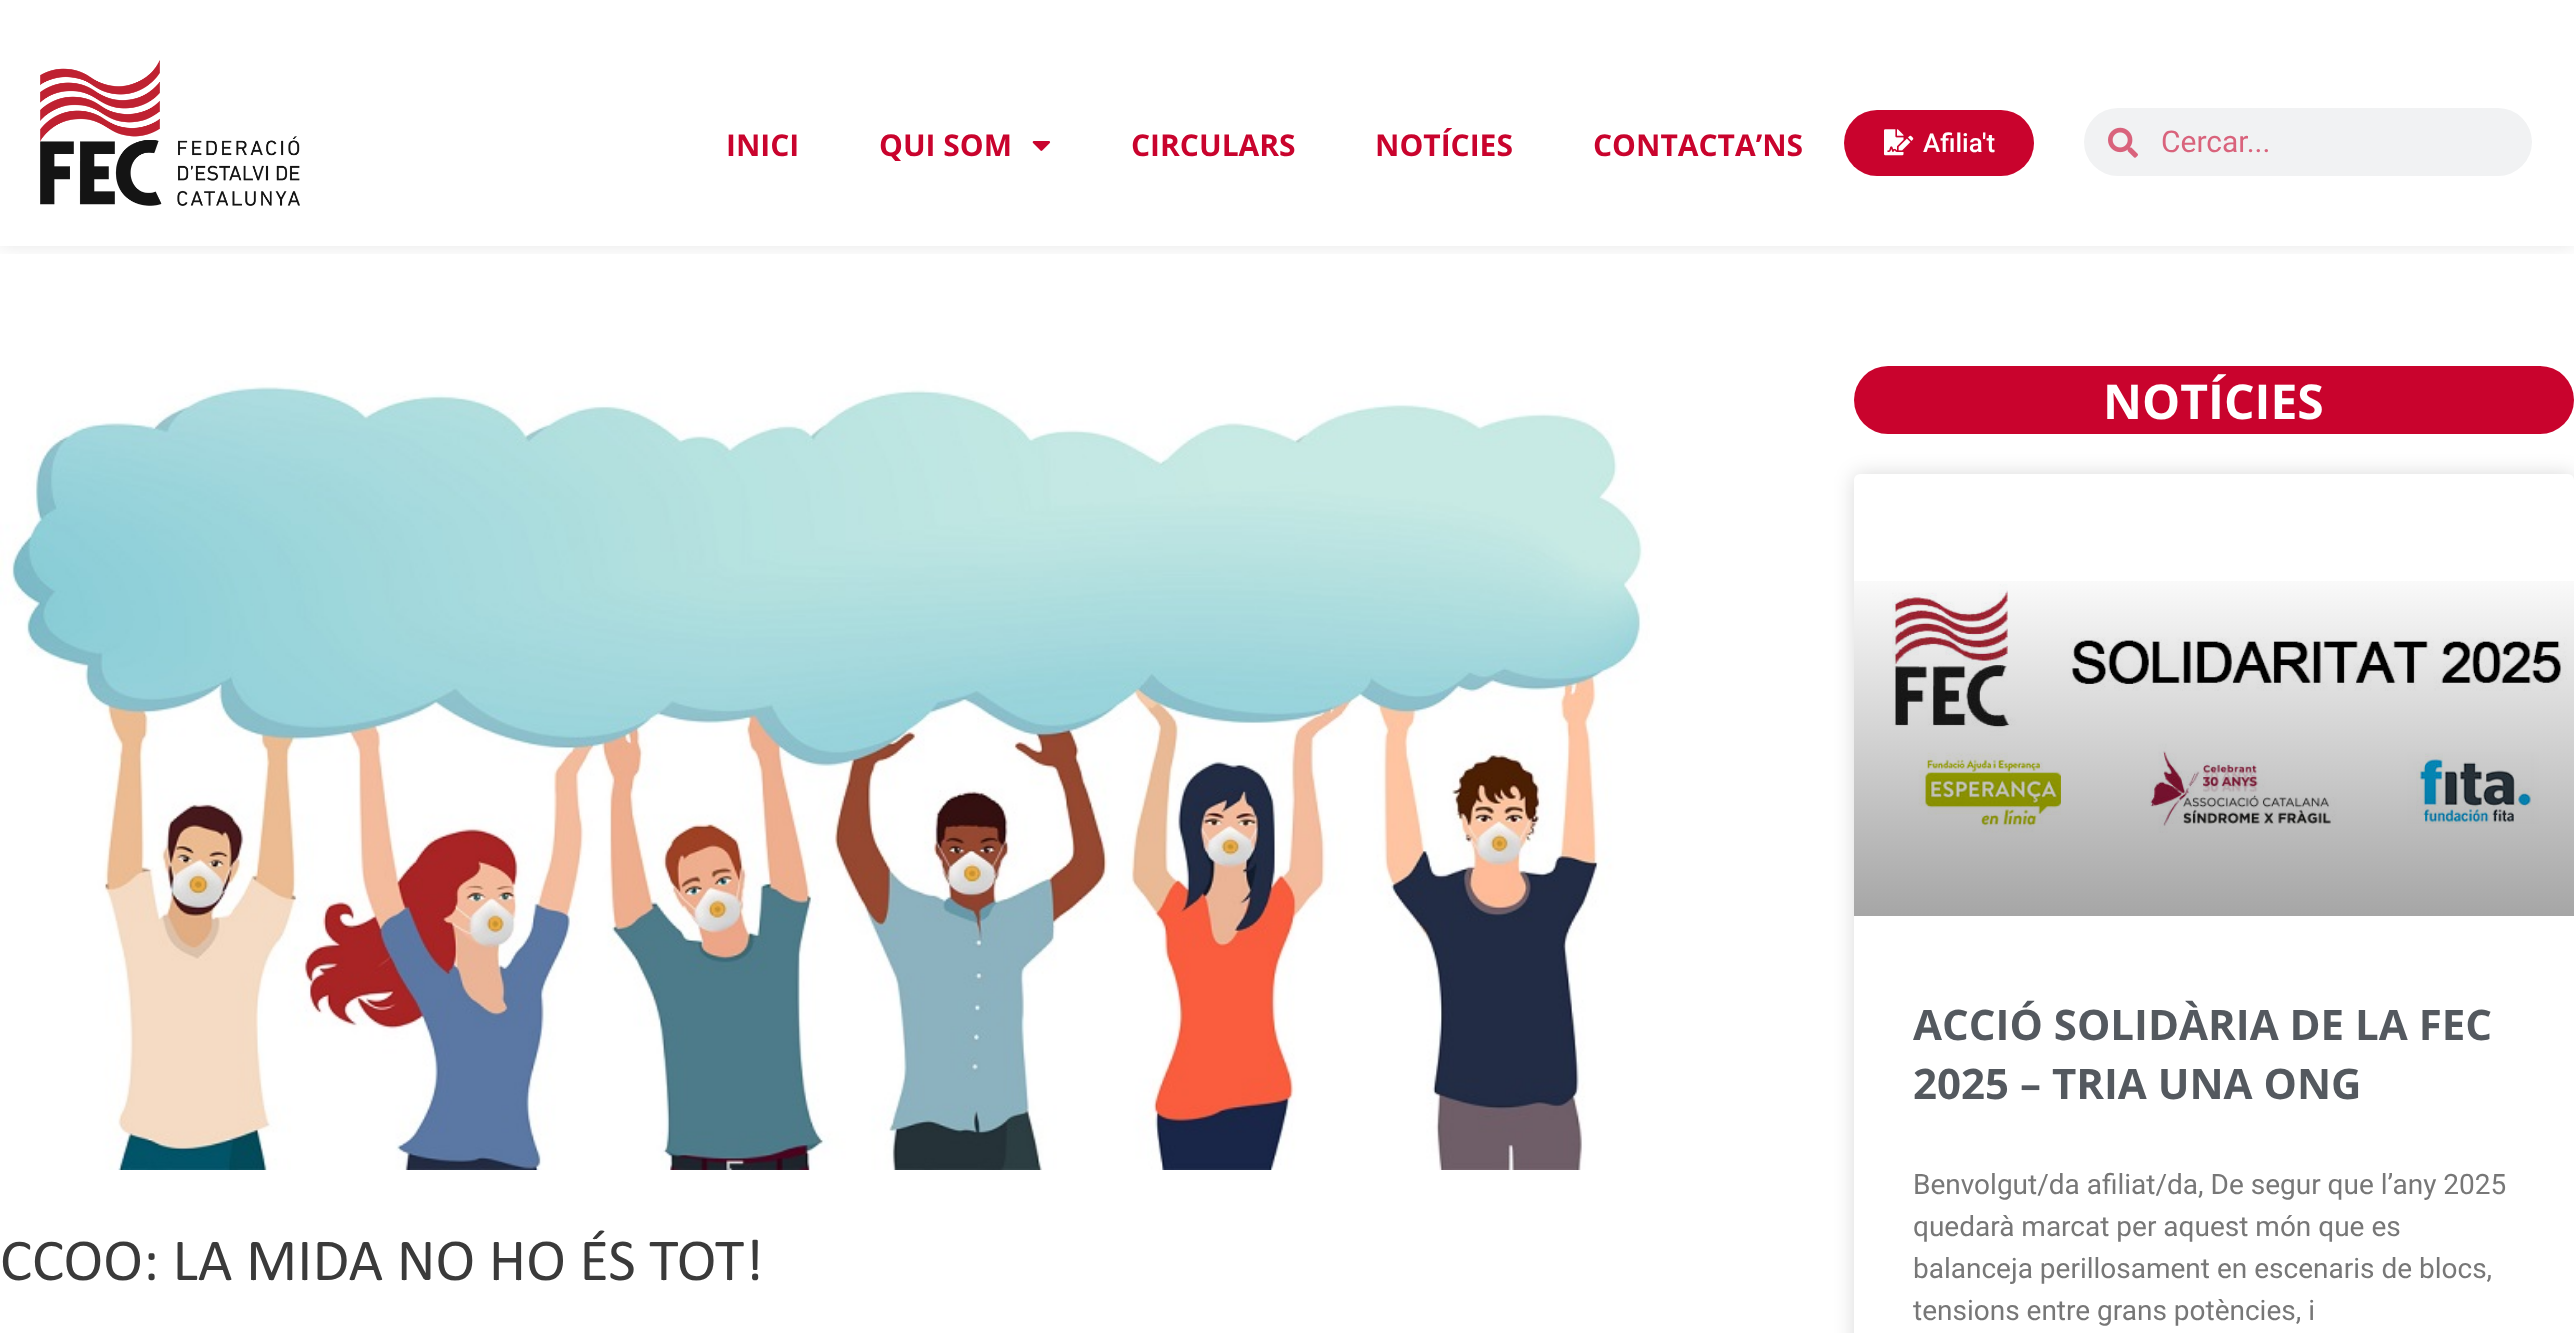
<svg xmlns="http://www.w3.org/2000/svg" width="2574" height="1333">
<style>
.a{font:bold 30px Open Sans;fill:#c9032d}
.b{font:500 26px Roboto;fill:#fff}
.c{font:30px Roboto;fill:#d9637c}
.d{font:60px Calibri;fill:#3a3a3a}
.e{font:bold 48px Open Sans;fill:#fff}
.f{font:bold 42px Open Sans;fill:#54595f}
.g{font:28px Roboto;fill:#777}
</style>
<defs>
<clipPath id="clip1"><path d="M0 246h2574v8H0z"/></clipPath>
<linearGradient id="g1" gradientUnits="userSpaceOnUse" x1="2214" y1="916" x2="2214" y2="440"><stop offset="0" stop-color="#000" stop-opacity="0.35"/><stop offset="0.75" stop-color="#000" stop-opacity="0"/></linearGradient>
</defs>
<rect width="100%" height="100%" fill="#fff"/>
<g clip-path="url(#clip1)">
<path fill="#0000001a" filter="blur(10px)" d="M0 0h2574v246H0z"/>
</g>
<image href="1.png" x="40" y="60" width="260" height="146"/>
<image href="2.png" x="1032" y="141" width="19" height="10"/>
<rect fill="#c9032d" x="1844" y="110" width="190" height="66" rx="33"/>
<image href="3.png" x="1884" y="129" width="30" height="27"/>
<rect fill="#f1f2f3" x="2084" y="108" width="448" height="68" rx="34"/>
<image href="4.png" x="2108" y="127" width="30" height="31"/>
<image href="5.png" x="0" y="380" width="1650" height="790"/>
<rect fill="#c9032d" x="1854" y="366" width="720" height="68" rx="34"/>
<rect fill="#00000026" filter="blur(10px)" x="1854" y="474" width="720" height="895" rx="6"/>
<rect fill="#fff" x="1854" y="474" width="720" height="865" rx="6"/>
<image href="6.png" x="1892" y="584" width="675" height="249"/>
<path fill="url(#g1)" d="M1854 581h720v335H1854z"/>
<text class="a" x="726" y="156">INICI</text>
<text class="a" x="879" y="156">QUI SOM</text>
<text class="a" x="1131" y="156">CIRCULARS</text>
<text class="a" x="1375" y="156">NOTÍCIES</text>
<text class="a" x="1593" y="156">CONTACTA’NS</text>
<text class="b" x="1923" y="152">Afilia't</text>
<text class="c" x="2161" y="152">Cercar...</text>
<text class="d" x="0" y="1280">CCOO: LA MIDA NO HO ÉS TOT!</text>
<text class="e" x="2103" y="419">NOTÍCIES</text>
<text class="f" x="1913" y="1040">ACCIÓ SOLIDÀRIA DE LA FEC</text>
<text class="f" x="1913" y="1099">2025 – TRIA UNA ONG</text>
<text class="g" x="1913" y="1194">Benvolgut/da afiliat/da, De segur que l’any 2025</text>
<text class="g" x="1913" y="1236">quedarà marcat per aquest món que es</text>
<text class="g" x="1913" y="1278">balanceja perillosament en escenaris de blocs,</text>
<text class="g" x="1913" y="1320">tensions entre grans potències, i</text>
</svg>
